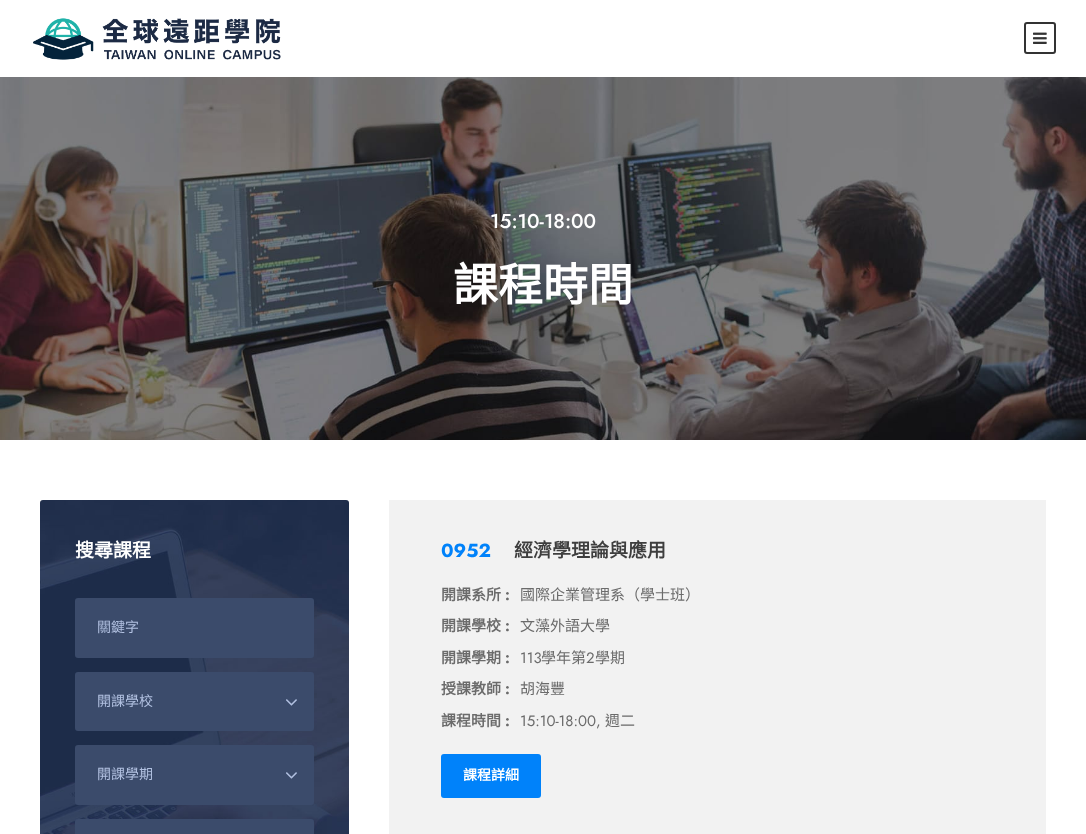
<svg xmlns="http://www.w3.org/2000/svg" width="1086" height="834">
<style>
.a{font:500 20px Jost;fill:#fff}
.b{font:bold 45px Noto Sans CJK TC;fill:#fff}
.c{font:bold 19px Noto Sans CJK TC;fill:#fff}
.d{font:14px Noto Sans CJK TC;fill:#b1c0e0}
.e{font:bold 19px Jost;fill:#0082fa}
.f{font:bold 19px Noto Sans CJK TC;fill:#3e3e3e}
.g{font:bold 15px Noto Sans CJK TC;fill:#6b6b6b}
.h{font:bold 15px Jost;fill:#6b6b6b}
.i{font:15px Noto Sans CJK TC;fill:#6b6b6b}
.j{font:15px Jost;fill:#6b6b6b}
.k{font:bold 14px Noto Sans CJK TC;fill:#fff}
</style>
<rect width="100%" height="100%" fill="#fff"/>
<image href="1.png" x="33" y="18" width="248" height="42"/>
<rect fill="none" stroke="#333" stroke-width="2" x="1025" y="23" width="30" height="30" rx="2"/>
<image href="2.png" x="1033" y="32" width="14" height="12"/>
<image href="3.png" x="0" y="77" width="1086" height="363"/>
<image href="4.png" x="40" y="500" width="309" height="334"/>
<rect fill="#3b4b6b" x="75" y="598" width="239" height="60" rx="3"/>
<rect fill="#3b4b6b" x="75" y="672" width="239" height="59" rx="3"/>
<image href="5.png" x="286" y="699" width="11" height="7"/>
<rect fill="#3b4b6b" x="75" y="745" width="239" height="60" rx="3"/>
<image href="5.png" x="286" y="772" width="11" height="7"/>
<rect fill="#3b4b6b" x="75" y="819" width="239" height="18" rx="3"/>
<path fill="#f2f2f2" d="M389 500h657v334H389z"/>
<rect fill="#0082fa" x="441" y="754" width="100" height="44" rx="3"/>
<text class="a" x="490" y="228">15:10-18:00</text>
<text class="b" x="453" y="301">課程時間</text>
<text class="c" x="75" y="557">搜尋課程</text>
<text class="d" x="97" y="632">關鍵字</text>
<text class="d" x="97" y="706">開課學校</text>
<text class="d" x="97" y="779">開課學期</text>
<text class="e" x="441" y="557">0952</text>
<text class="f" x="514" y="557">經濟學理論與應用</text>
<text class="g" x="441" y="600">開課系所</text>
<text class="h" x="505" y="600">:</text>
<text class="i" x="520" y="600">國際企業管理系（學士班）</text>
<text class="g" x="441" y="631">開課學校</text>
<text class="h" x="505" y="631">:</text>
<text class="i" x="520" y="631">文藻外語大學</text>
<text class="g" x="441" y="663">開課學期</text>
<text class="h" x="505" y="663">:</text>
<text class="j" x="520" y="663">113</text>
<text class="i" x="541" y="663">學年第</text>
<text class="j" x="586" y="663">2</text>
<text class="i" x="595" y="663">學期</text>
<text class="g" x="441" y="694">授課教師</text>
<text class="h" x="505" y="694">:</text>
<text class="i" x="520" y="694">胡海豐</text>
<text class="g" x="441" y="726">課程時間</text>
<text class="h" x="505" y="726">:</text>
<text class="j" x="520" y="726">15:10-18:00,</text>
<text class="i" x="605" y="726">週二</text>
<text class="k" x="463" y="780">課程詳細</text>
</svg>
